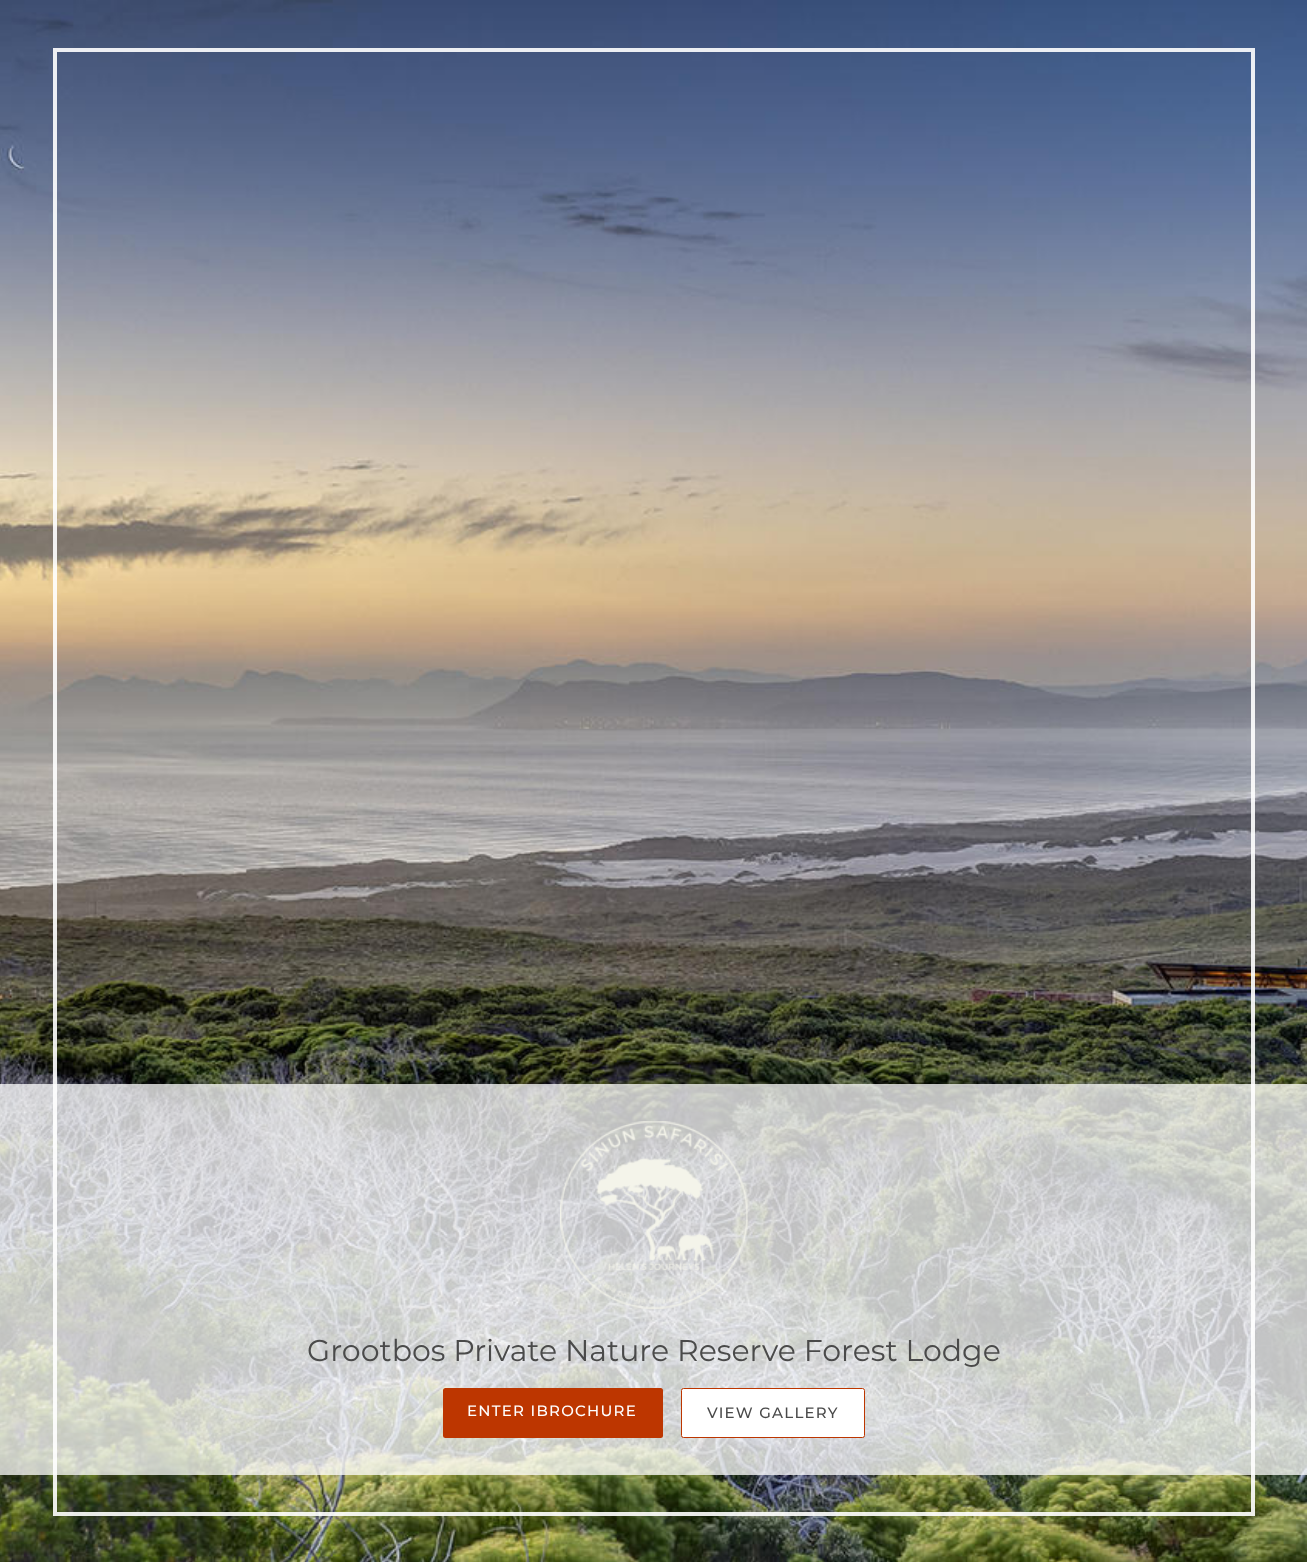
<svg xmlns="http://www.w3.org/2000/svg" width="1307" height="1562">
<style>
.a{font:30px Montserrat;fill:#4a4a4a}
.b{font:500 15px Montserrat;letter-spacing:1.25px;fill:#fff}
.c{font:500 15px Montserrat;letter-spacing:1.25px;fill:#4a4a4a}
</style>
<rect width="100%" height="100%" fill="#fff"/>
<image href="1.png" x="0" y="0" width="1307" height="1562"/>
<path fill="none" stroke="#ffffffe6" stroke-width="4" d="M55 50h1198v1464H55z"/>
<path fill="#ffffffbf" d="M0 1084h1307v391H0z"/>
<image href="2.png" x="560" y="1121" width="188" height="188"/>
<rect fill="#bd3600" x="443" y="1388" width="220" height="50" rx="2.5"/>
<rect fill="#fff" stroke="#bd3600" x="681.5" y="1388.5" width="183" height="49" rx="2"/>
<text class="a" x="307" y="1361">Grootbos Private Nature Reserve Forest Lodge</text>
<text class="b" x="467" y="1416">ENTER IBROCHURE</text>
<text class="c" x="707" y="1418">VIEW GALLERY</text>
</svg>
